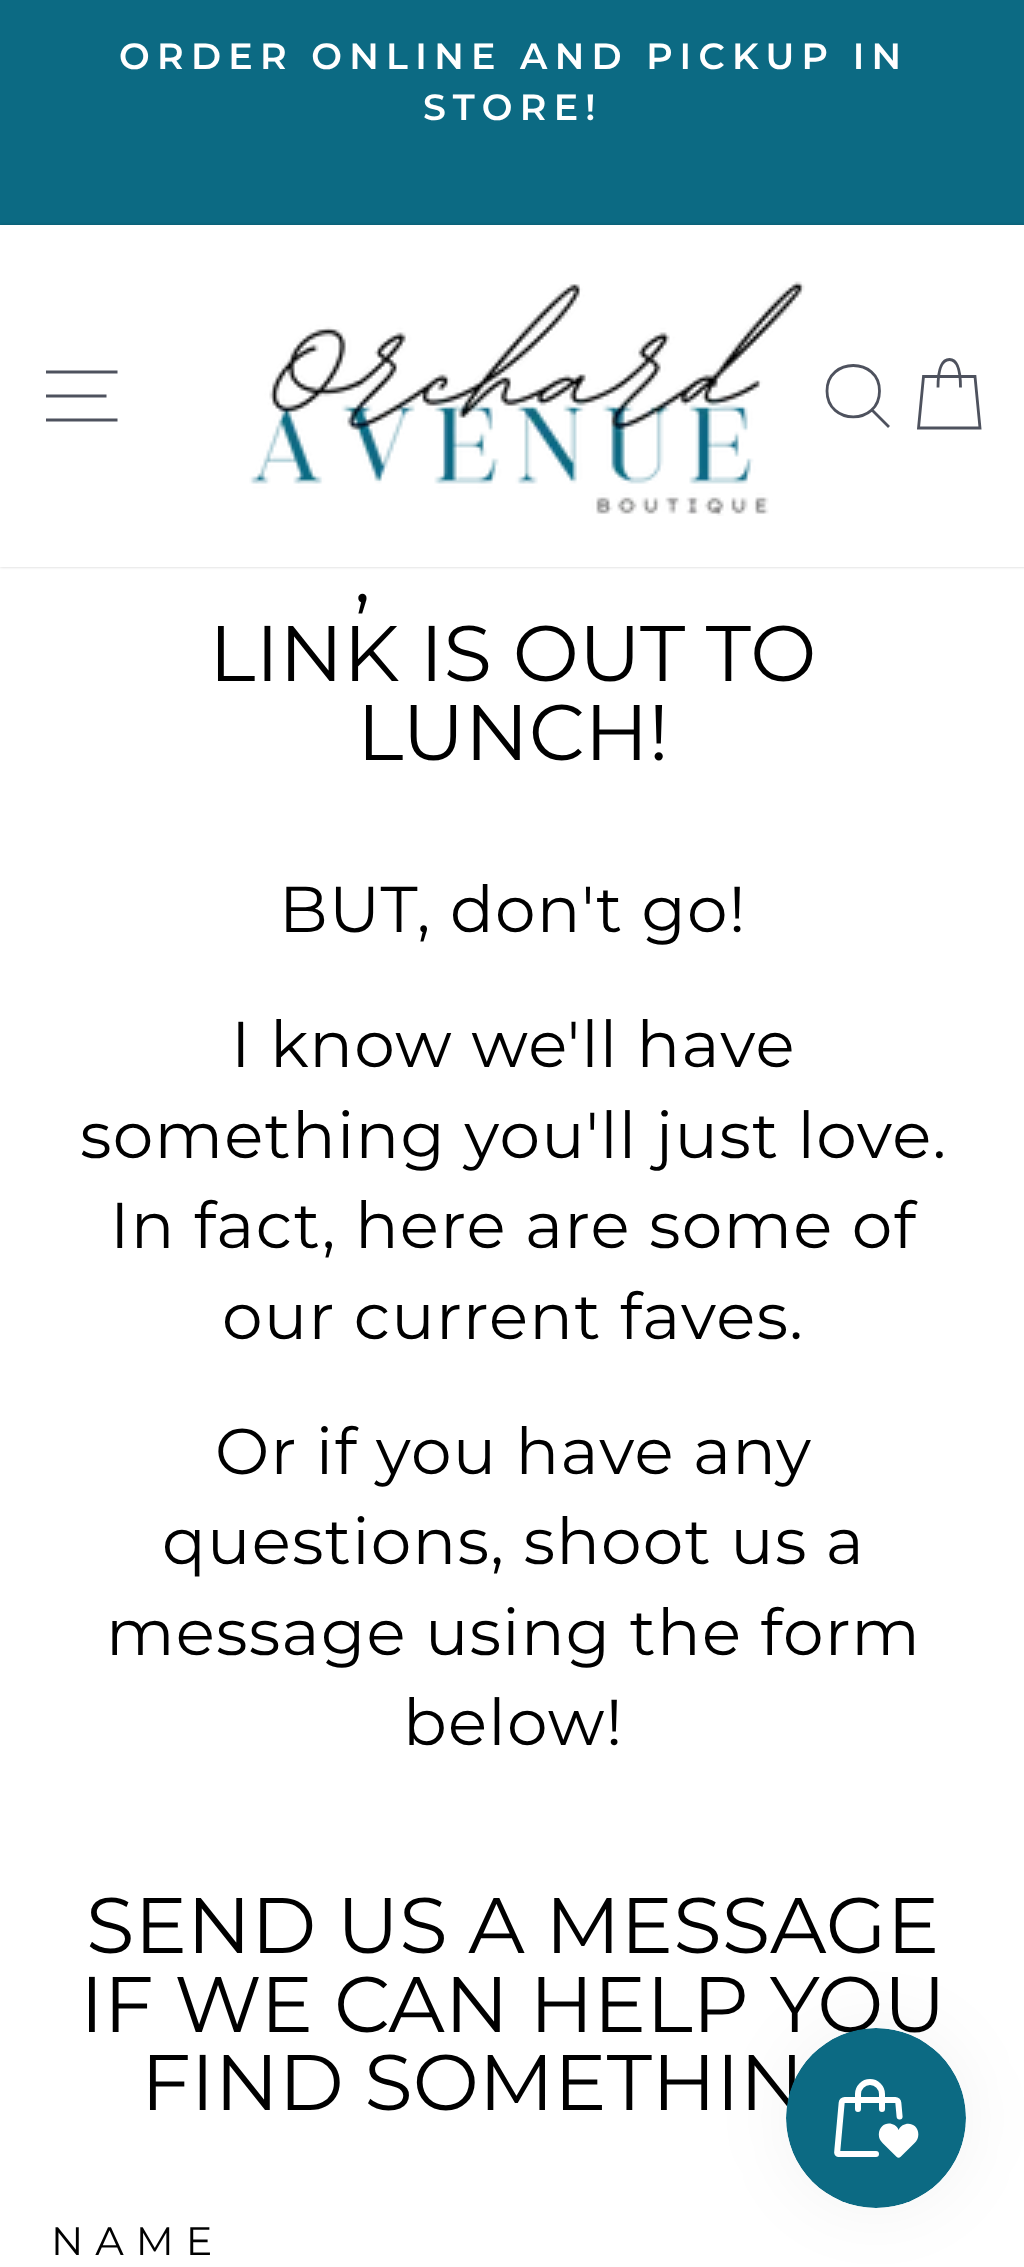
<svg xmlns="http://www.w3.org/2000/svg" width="1024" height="2267">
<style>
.a{font:600 36.45px Montserrat;letter-spacing:7.3px;fill:#fff}
.b{font:78.75px Montserrat;fill:#000}
.c{font:64.6px Montserrat;letter-spacing:1.25px;fill:#000}
.d{font:39.75px Montserrat;letter-spacing:12px;fill:#000}
</style>
<rect width="100%" height="100%" fill="#fff"/>
<path fill="#0c6a83" d="M0 0h1024v225H0z"/>
<path fill="#00000033" filter="blur(1.5px)" d="M0 225h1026v342H0z"/>
<path fill="#fff" d="M0 225h1024v342H0z"/>
<path fill="none" stroke="#4e525e" stroke-width="2.8" d="M46 372h71.5m-71.5 24h60.5m-60.5 24h71.5"/>
<image href="1.png" x="249" y="281" width="556" height="235"/>
<path fill="none" stroke="#4e525e" stroke-width="2.8" d="M879.5 391c0 34.5-52.5 34.5-52.5 0c0-34 52.5-34 52.5 0zm9.5 36l-17-17"/>
<path fill="none" stroke="#4e525e" stroke-width="2.8" d="M938 387.5c0-22 5-28 11.5-28c6 0 11 6 11 28"/>
<path fill="none" stroke="#4e525e" stroke-width="2.8" d="M923.5 376.5h51.5l5 51.5h-61.5z"/>
<rect fill="#0000000d" filter="blur(37.5px)" x="786" y="2028" width="180" height="180" rx="90"/>
<text class="a" x="119" y="69">ORDER ONLINE AND PICKUP IN</text>
<text class="a" x="423" y="120">STORE!</text>
<text class="b" x="354" y="602">,</text>
<text class="b" x="209" y="681">LINK IS OUT TO</text>
<text class="b" x="357" y="760">LUNCH!</text>
<text class="c" x="279" y="932">BUT, don't go!</text>
<text class="c" x="231" y="1067">I know we'll have</text>
<text class="c" x="80" y="1158">something you'll just love.</text>
<text class="c" x="110" y="1248">In fact, here are some of</text>
<text class="c" x="222" y="1339">our current faves.</text>
<text class="c" x="215" y="1474">Or if you have any</text>
<text class="c" x="162" y="1564">questions, shoot us a</text>
<text class="c" x="106" y="1655">message using the form</text>
<text class="c" x="403" y="1745">below!</text>
<text class="b" x="86" y="1953">SEND US A MESSAGE</text>
<text class="b" x="80" y="2032">IF WE CAN HELP YOU</text>
<text class="b" x="141" y="2110">FIND SOMETHIN</text>
<text class="d" x="51" y="2255">NAME</text>
<image href="2.png" x="786" y="2028" width="180" height="180"/>
</svg>
